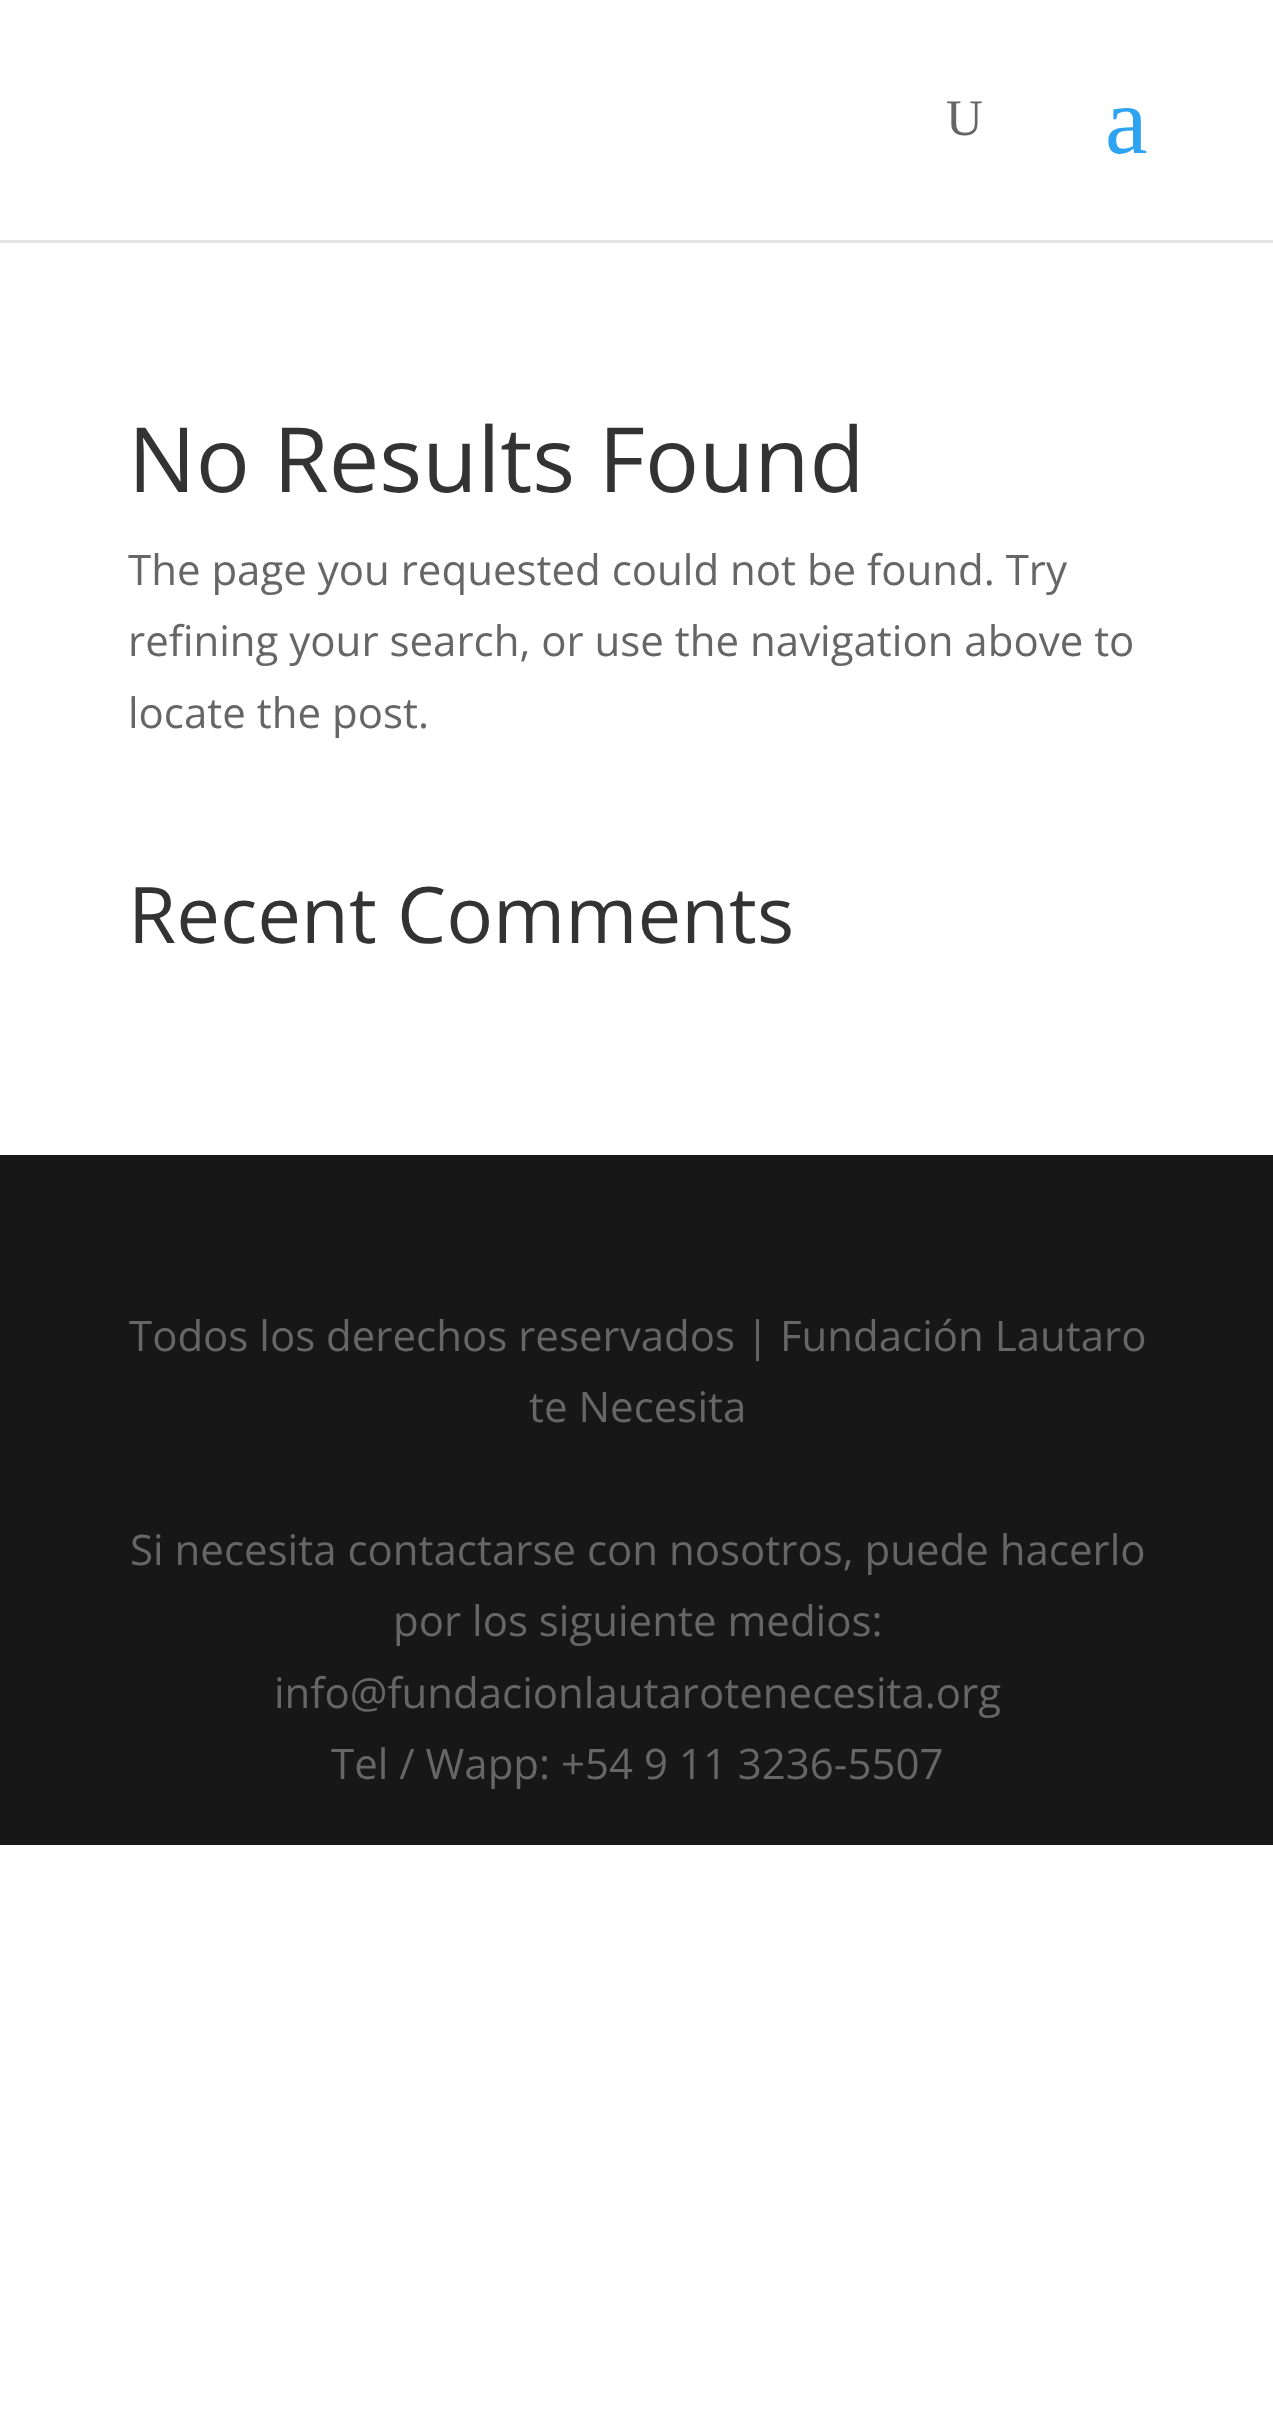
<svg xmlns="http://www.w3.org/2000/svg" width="1273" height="2412">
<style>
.a{font:51px Liberation Serif;fill:#666}
.b{font:96px Liberation Serif;fill:#2ea3f2}
.c{font:90px Open Sans;fill:#333}
.d{font:42px Open Sans;fill:#666}
.e{font:78px Open Sans;fill:#333}
</style>
<rect width="100%" height="100%" fill="#fff"/>
<path fill="#e6e6e6" d="M0 240h1273v3H0z"/>
<path fill="#171717" d="M0 1155h1273v690H0z"/>
<text class="a" x="946" y="135">U</text>
<text class="b" x="1105" y="153">a</text>
<text class="c" x="128" y="492">No Results Found</text>
<text class="d" x="128" y="585">The page you requested could not be found. Try</text>
<text class="d" x="128" y="656">refining your search, or use the navigation above to</text>
<text class="d" x="128" y="728">locate the post.</text>
<text class="e" x="128" y="943">Recent Comments</text>
<text class="d" x="129" y="1351">Todos los derechos reservados | Fundación Lautaro</text>
<text class="d" x="529" y="1422">te Necesita</text>
<text class="d" x="130" y="1565">Si necesita contactarse con nosotros, puede hacerlo</text>
<text class="d" x="393" y="1636">por los siguiente medios:</text>
<text class="d" x="274" y="1708">info@fundacionlautarotenecesita.org</text>
<text class="d" x="331" y="1779">Tel / Wapp: +54 9 11 3236-5507</text>
</svg>
